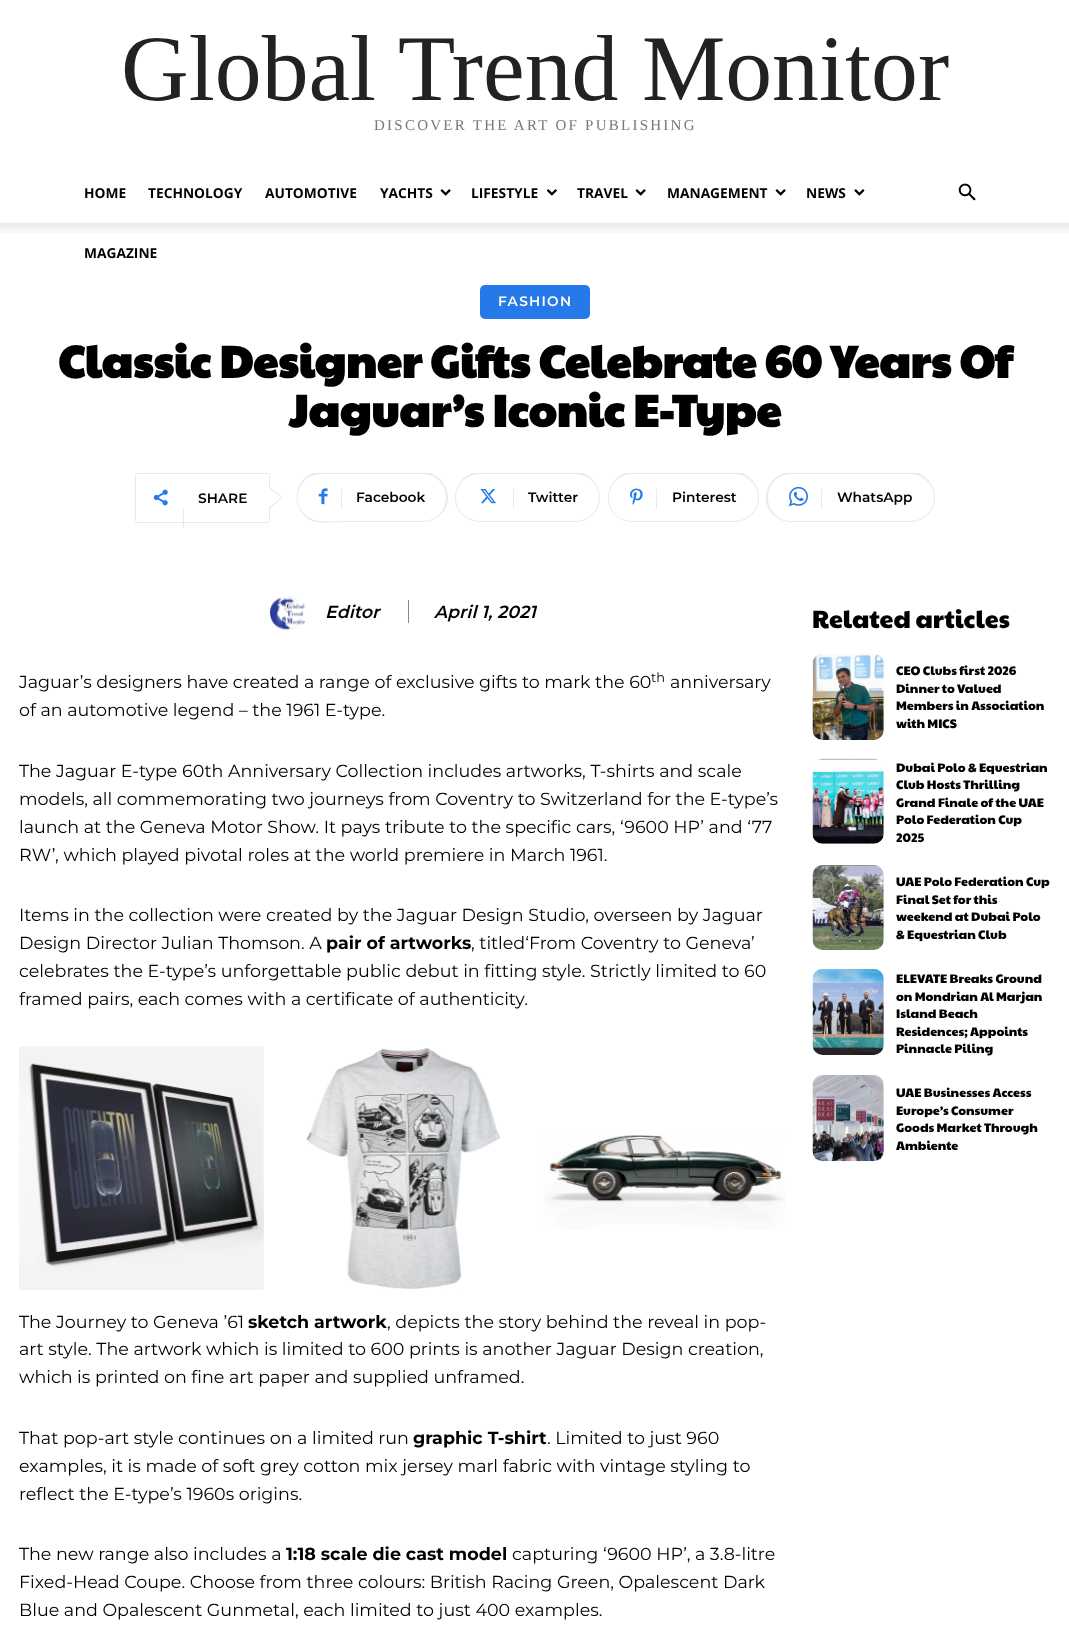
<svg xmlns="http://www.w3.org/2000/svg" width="1069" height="1645">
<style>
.a{font:93.75px Liberation Serif;fill:#222}
.b{font:15px Liberation Serif;letter-spacing:2.25px;fill:#777}
.c{font:bold 13.75px Open Sans;fill:#000}
.d{font:600 13.75px Montserrat;letter-spacing:1.25px;fill:#fff}
.e{font:bold 45px Paytone One;fill:#000}
.f{font:600 13.75px Montserrat;fill:#000}
.g{font:italic 600 17.5px Montserrat;fill:#000}
.h{font:17.5px Montserrat;fill:#000}
.i{font:13px Montserrat;fill:#000}
.j{font:bold 17.5px Montserrat;fill:#000}
.k{font:25px Paytone One;fill:#000}
.l{font:12.5px Paytone One;fill:#000}
</style>
<defs>
<clipPath id="clip1"><path d="M296 473h152v50H296z"/></clipPath>
<clipPath id="clip2"><path d="M455 473h145v50H455z"/></clipPath>
<clipPath id="clip3"><path d="M608 473h151v50H608z"/></clipPath>
<clipPath id="clip4"><path d="M766 473h169v50H766z"/></clipPath>
</defs>
<rect width="100%" height="100%" fill="#fff"/>
<image href="1.png" x="440" y="189" width="11" height="7"/>
<image href="2.png" x="546" y="189" width="11" height="7"/>
<image href="1.png" x="635" y="189" width="11" height="7"/>
<image href="1.png" x="775" y="189" width="11" height="7"/>
<image href="3.png" x="854" y="189" width="11" height="7"/>
<image href="4.png" x="958" y="183" width="18" height="18"/>
<image href="5.png" x="0" y="222" width="1069" height="11"/>
<rect fill="#2579e8" x="480" y="285" width="110" height="34" rx="5"/>
<rect fill="none" stroke="#e9e9e9" x="135.5" y="473.5" width="134" height="49" rx="2"/>
<path fill="#e9e9e9" d="M269 509v-23l13.5 11.5z"/>
<image href="6.png" x="153" y="489" width="15" height="17"/>
<path fill="#00000014" d="M183 508h1v20H183z"/>
<path fill="#fff" d="M269 507.5v-20l12 10z"/>
<g clip-path="url(#clip1)">
<path fill="#e9e9e9" fill-rule="evenodd" d="M341 472h81c14 0 26 12 26 26c0 13-12 24-26 24h-81zm0 2h81c14 0 24 10 24 24c0 13-10 23-24 23h-81z"/>
<path fill="#e9e9e9" fill-rule="evenodd" d="M321 472h28v50c-10 0-29 2-37-1c-25-11-18-49 9-49zm0 2h28v47c-10 0-29 2-37-2c-24-10-16-45 9-45z"/>
</g>
<image href="7.png" x="318" y="488" width="10" height="17"/>
<path fill="#ebebeb" d="M341 489h1v20H341z"/>
<g clip-path="url(#clip2)">
<path fill="#e9e9e9" fill-rule="evenodd" d="M512 472h63c14 0 25 12 25 26c0 13-11 24-25 24h-63zm0 2h63c13 0 24 10 24 24c0 13-11 23-24 23h-63z"/>
<path fill="#e9e9e9" fill-rule="evenodd" d="M480 472h40v50h-40c-14 0-25-11-25-24c0-14 11-26 25-26zm0 2h40v47h-40c-13 0-24-10-24-23c0-14 11-24 24-24z"/>
</g>
<image href="8.png" x="480" y="489" width="16" height="15"/>
<path fill="#ebebeb" d="M513 489h1v20H513z"/>
<g clip-path="url(#clip3)">
<path fill="#e9e9e9" fill-rule="evenodd" d="M656 472h78c14 0 25 12 25 26c0 13-11 24-25 24h-78zm0 2h78c13 0 24 10 24 24c0 13-11 23-24 23h-78z"/>
<path fill="#e9e9e9" fill-rule="evenodd" d="M632 472h32v50h-32c-13 0-24-11-24-24c0-14 11-26 24-26zm0 2h32v47h-32c-13 0-23-10-23-23c0-14 10-24 23-24z"/>
</g>
<image href="9.png" x="630" y="488" width="13" height="17"/>
<path fill="#ebebeb" d="M656 489h1v20H656z"/>
<g clip-path="url(#clip4)">
<path fill="#e9e9e9" fill-rule="evenodd" d="M821 472h89c14 0 25 12 25 26c0 13-11 24-25 24h-89zm0 2h89c13 0 24 10 24 24c0 13-11 23-24 23h-89z"/>
<path fill="#e9e9e9" fill-rule="evenodd" d="M791 472h38v50h-38c-14 0-25-11-25-24c0-14 11-26 25-26zm0 2h38v47h-38c-13 0-23-10-23-23c0-14 10-24 23-24z"/>
</g>
<image href="10.png" x="788" y="486" width="20" height="21"/>
<path fill="#ebebeb" d="M821 489h1v20H821z"/>
<image href="11.png" x="270" y="596" width="36" height="35"/>
<path fill="#888" d="M408 600h1v23H408z"/>
<image href="12.png" x="19" y="1046" width="245" height="244"/>
<image href="13.png" x="306" y="1048" width="195" height="241"/>
<image href="14.png" x="543" y="1135" width="243" height="95"/>
<image href="15.png" x="812" y="654" width="72" height="86"/>
<image href="16.png" x="812" y="758" width="72" height="86"/>
<image href="17.png" x="812" y="865" width="72" height="85"/>
<image href="18.png" x="812" y="968" width="72" height="87"/>
<image href="19.png" x="812" y="1075" width="72" height="87"/>
<text class="a" x="121" y="100">Global Trend Monitor</text>
<text class="b" x="374" y="130">DISCOVER THE ART OF PUBLISHING</text>
<text class="c" x="84" y="198">HOME</text>
<text class="c" x="148" y="198">TECHNOLOGY</text>
<text class="c" x="265" y="198">AUTOMOTIVE</text>
<text class="c" x="380" y="198">YACHTS</text>
<text class="c" x="471" y="198">LIFESTYLE</text>
<text class="c" x="577" y="198">TRAVEL</text>
<text class="c" x="667" y="198">MANAGEMENT</text>
<text class="c" x="806" y="198">NEWS</text>
<text class="c" x="84" y="258">MAGAZINE</text>
<text class="d" x="498" y="306">FASHION</text>
<text class="e" x="58" y="378">Classic Designer Gifts Celebrate 60 Years Of</text>
<text class="e" x="289" y="427">Jaguar’s Iconic E-Type</text>
<text class="f" x="198" y="503">SHARE</text>
<text class="f" x="356" y="502">Facebook</text>
<text class="f" x="528" y="502">Twitter</text>
<text class="f" x="672" y="502">Pinterest</text>
<text class="f" x="837" y="502">WhatsApp</text>
<text class="g" x="325" y="618">Editor</text>
<text class="g" x="434" y="618">April 1, 2021</text>
<text class="h" x="19" y="688">Jaguar’s designers have created a range of exclusive gifts to mark the 60</text>
<text class="i" x="651" y="682">th</text>
<text class="h" x="670" y="688">anniversary</text>
<text class="h" x="19" y="716">of an automotive legend – the 1961 E-type.</text>
<text class="h" x="19" y="777">The Jaguar E-type 60th Anniversary Collection includes artworks, T-shirts and scale</text>
<text class="h" x="19" y="805">models, all commemorating two journeys from Coventry to Switzerland for the E-type’s</text>
<text class="h" x="19" y="833">launch at the Geneva Motor Show. It pays tribute to the specific cars, ‘9600 HP’ and ‘77</text>
<text class="h" x="19" y="861">RW’, which played pivotal roles at the world premiere in March 1961.</text>
<text class="h" x="19" y="921">Items in the collection were created by the Jaguar Design Studio, overseen by Jaguar</text>
<text class="h" x="19" y="949">Design Director Julian Thomson. A</text>
<text class="j" x="326" y="949">pair of artworks</text>
<text class="h" x="471" y="949">, titled‘From Coventry to Geneva’</text>
<text class="h" x="19" y="977">celebrates the E-type’s unforgettable public debut in fitting style. Strictly limited to 60</text>
<text class="h" x="19" y="1005">framed pairs, each comes with a certificate of authenticity.</text>
<text class="h" x="19" y="1328">The Journey to Geneva ’61</text>
<text class="j" x="248" y="1328">sketch artwork</text>
<text class="h" x="387" y="1328">, depicts the story behind the reveal in pop-</text>
<text class="h" x="19" y="1355">art style. The artwork which is limited to 600 prints is another Jaguar Design creation,</text>
<text class="h" x="19" y="1383">which is printed on fine art paper and supplied unframed.</text>
<text class="h" x="19" y="1444">That pop-art style continues on a limited run</text>
<text class="j" x="413" y="1444">graphic T-shirt</text>
<text class="h" x="547" y="1444">. Limited to just 960</text>
<text class="h" x="19" y="1472">examples, it is made of soft grey cotton mix jersey marl fabric with vintage styling to</text>
<text class="h" x="19" y="1500">reflect the E-type’s 1960s origins.</text>
<text class="h" x="19" y="1560">The new range also includes a</text>
<text class="j" x="286" y="1560">1:18 scale die cast model</text>
<text class="h" x="512" y="1560">capturing ‘9600 HP’, a 3.8-litre</text>
<text class="h" x="19" y="1588">Fixed-Head Coupe. Choose from three colours: British Racing Green, Opalescent Dark</text>
<text class="h" x="19" y="1616">Blue and Opalescent Gunmetal, each limited to just 400 examples.</text>
<text class="k" x="812" y="628">Related articles</text>
<text class="l" x="896" y="675">CEO Clubs first 2026</text>
<text class="l" x="896" y="693">Dinner to Valued</text>
<text class="l" x="896" y="710">Members in Association</text>
<text class="l" x="896" y="728">with MICS</text>
<text class="l" x="896" y="772">Dubai Polo &amp; Equestrian</text>
<text class="l" x="896" y="789">Club Hosts Thrilling</text>
<text class="l" x="896" y="807">Grand Finale of the UAE</text>
<text class="l" x="896" y="824">Polo Federation Cup</text>
<text class="l" x="896" y="842">2025</text>
<text class="l" x="896" y="886">UAE Polo Federation Cup</text>
<text class="l" x="896" y="904">Final Set for this</text>
<text class="l" x="896" y="921">weekend at Dubai Polo</text>
<text class="l" x="896" y="939">&amp; Equestrian Club</text>
<text class="l" x="896" y="983">ELEVATE Breaks Ground</text>
<text class="l" x="896" y="1001">on Mondrian Al Marjan</text>
<text class="l" x="896" y="1018">Island Beach</text>
<text class="l" x="896" y="1036">Residences; Appoints</text>
<text class="l" x="896" y="1053">Pinnacle Piling</text>
<text class="l" x="896" y="1097">UAE Businesses Access</text>
<text class="l" x="896" y="1115">Europe’s Consumer</text>
<text class="l" x="896" y="1132">Goods Market Through</text>
<text class="l" x="896" y="1150">Ambiente</text>
</svg>
